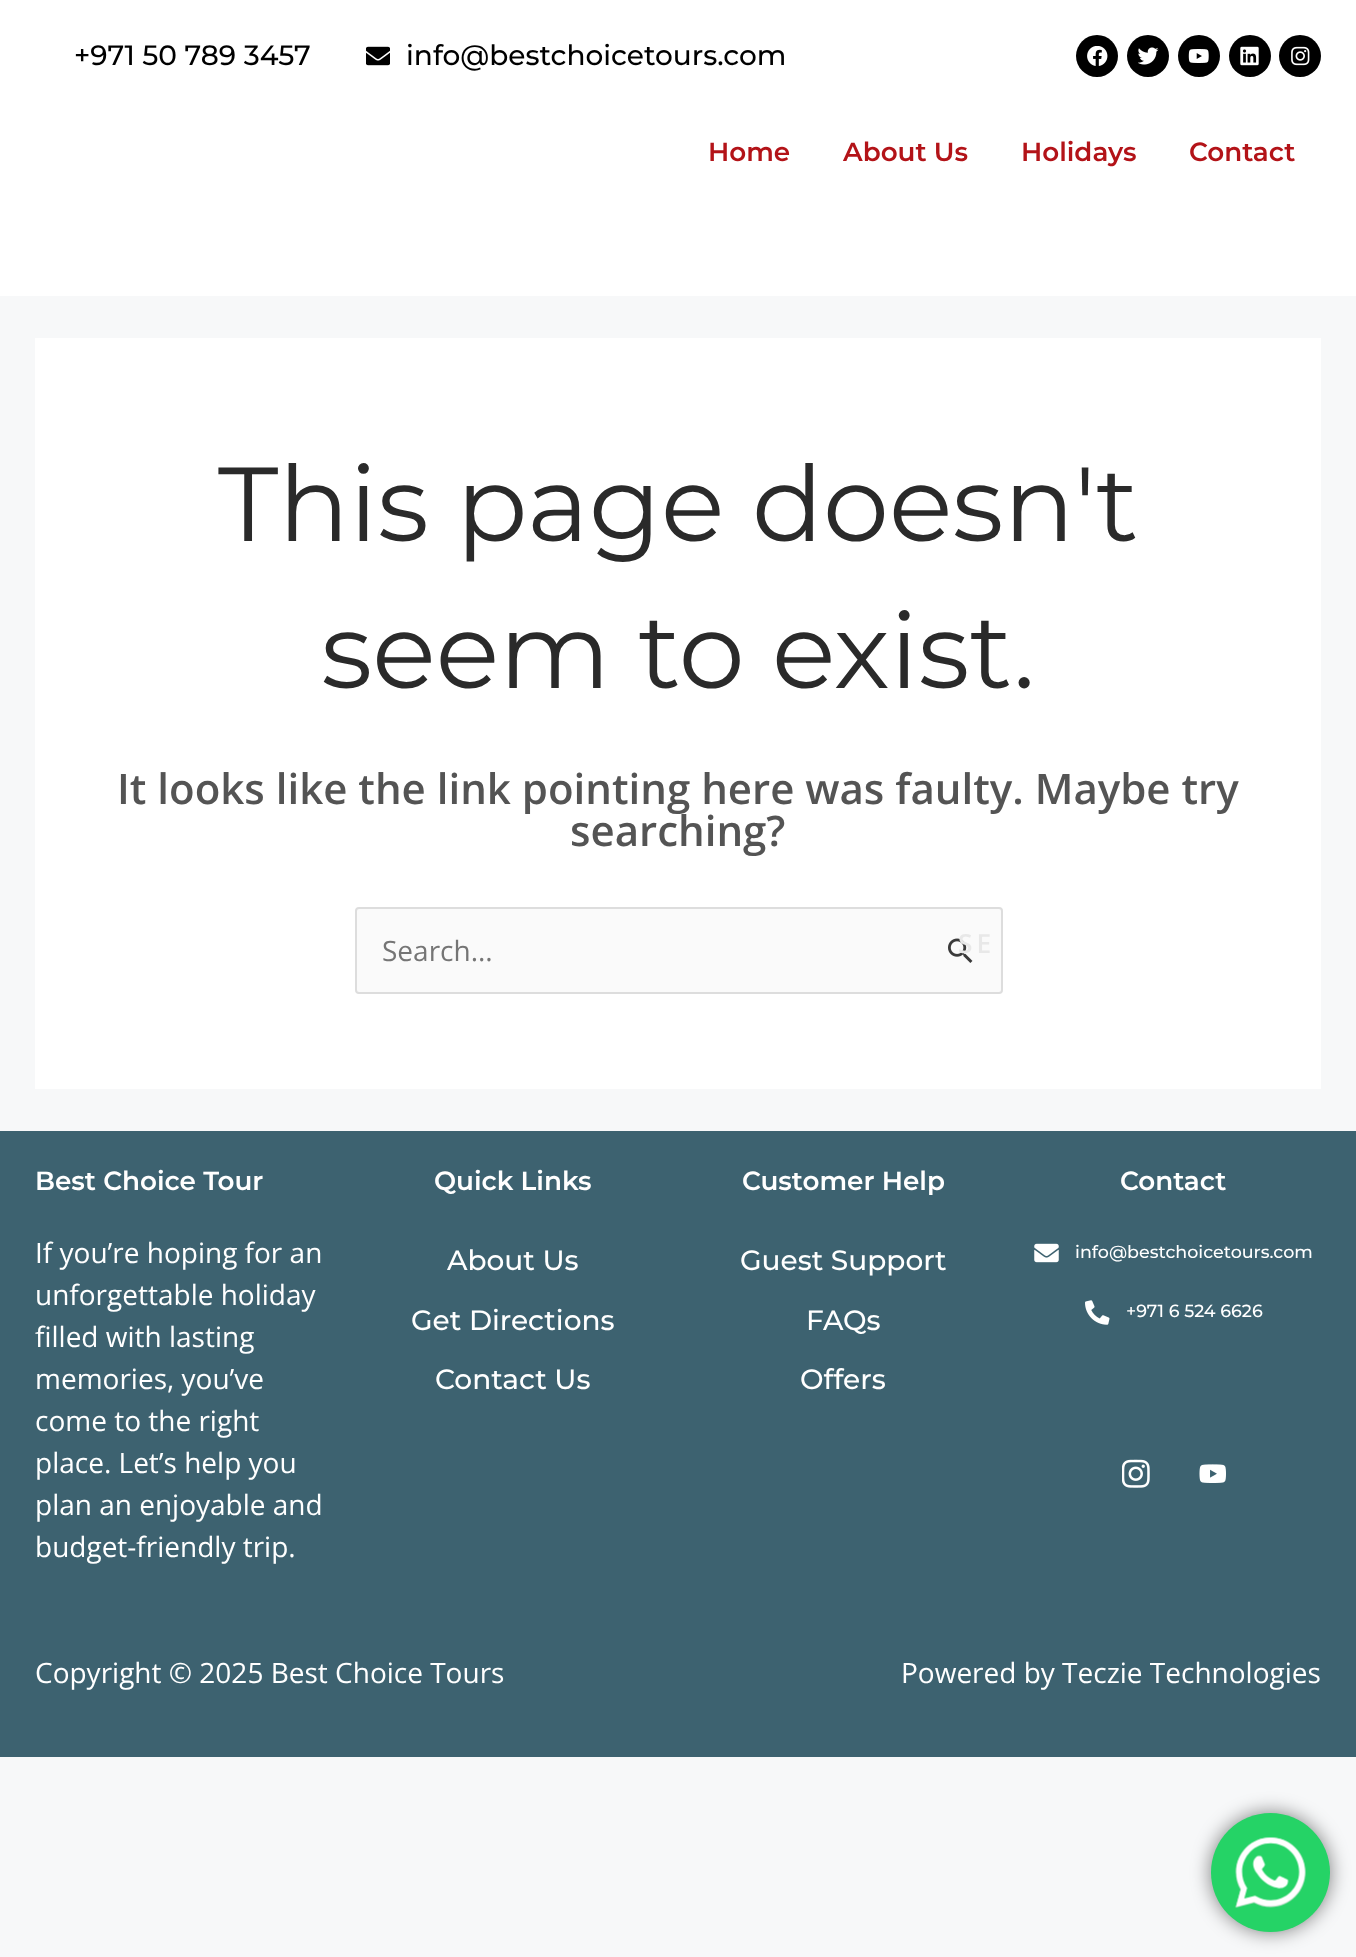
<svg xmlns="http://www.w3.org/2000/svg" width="1356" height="1957">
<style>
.a{font:500 28px Montserrat;fill:#000}
.b{font:600 26.25px Montserrat;fill:#b31318}
.c{font:105px Montserrat;fill:#2a2a2a}
.d{font:600 42px Open Sans;fill:#545454}
.e{font:28px Open Sans;fill:#757575}
.f{font:600 26.25px Open Sans;letter-spacing:4px;fill:#e8e8e8}
.g{font:600 26.25px Montserrat;fill:#fff}
.h{font:28px Open Sans;fill:#fff}
.i{font:500 28px Montserrat;fill:#fff}
.j{font:500 17.5px Montserrat;fill:#fff}
</style>
<rect width="100%" height="100%" fill="#f7f8f9"/>
<path fill="#fff" d="M0 0h1356v296H0z"/>
<image href="1.png" x="366" y="46" width="24" height="20"/>
<circle fill="#000" cx="1097" cy="56" r="21"/>
<image href="2.png" x="1087" y="46" width="21" height="20"/>
<circle fill="#000" cx="1148" cy="56" r="21"/>
<image href="3.png" x="1138" y="47" width="21" height="18"/>
<circle fill="#000" cx="1199" cy="56" r="21"/>
<image href="4.png" x="1188" y="49" width="21" height="14"/>
<circle fill="#000" cx="1250" cy="56" r="21"/>
<image href="5.png" x="1240" y="46" width="19" height="20"/>
<circle fill="#000" cx="1300" cy="56" r="21"/>
<image href="6.png" x="1291" y="46" width="19" height="20"/>
<path fill="#fff" d="M35 338h1286v751H35z"/>
<rect fill="#fafafa" stroke="#ddd" stroke-width="2" x="356" y="908" width="646" height="85" rx="3"/>
<image href="7.png" x="948" y="938" width="25" height="25"/>
<path fill="#3d6270" d="M0 1131h1356v626H0z"/>
<image href="8.png" x="1034" y="1243" width="25" height="20"/>
<image href="9.png" x="1085" y="1300" width="25" height="25"/>
<image href="10.png" x="1122" y="1459" width="28" height="29"/>
<image href="11.png" x="1199" y="1464" width="27" height="19"/>
<rect fill="#00000080" filter="blur(9.5px)" x="1211" y="1813" width="119" height="119" rx="59.5"/>
<circle fill="#25d366" cx="1270.5" cy="1872.5" r="59.5"/>
<image href="12.png" x="1235" y="1837" width="71" height="71"/>
<text class="a" x="74" y="65">+971 50 789 3457</text>
<text class="a" x="406" y="65">info@bestchoicetours.com</text>
<text class="b" x="708" y="161">Home</text>
<text class="b" x="843" y="161">About Us</text>
<text class="b" x="1021" y="161">Holidays</text>
<text class="b" x="1189" y="161">Contact</text>
<text class="c" x="218" y="541">This page doesn't</text>
<text class="c" x="321" y="688">seem to exist.</text>
<text class="d" x="117" y="804">It looks like the link pointing here was faulty. Maybe try</text>
<text class="d" x="570" y="846">searching?</text>
<text class="e" x="382" y="961">Search...</text>
<text class="f" x="958" y="953">SE</text>
<text class="g" x="35" y="1190">Best Choice Tour</text>
<text class="h" x="35" y="1263">If you’re hoping for an</text>
<text class="h" x="35" y="1305">unforgettable holiday</text>
<text class="h" x="35" y="1347">filled with lasting</text>
<text class="h" x="35" y="1389">memories, you’ve</text>
<text class="h" x="35" y="1431">come to the right</text>
<text class="h" x="35" y="1473">place. Let’s help you</text>
<text class="h" x="35" y="1515">plan an enjoyable and</text>
<text class="h" x="35" y="1557">budget-friendly trip.</text>
<text class="g" x="434" y="1190">Quick Links</text>
<text class="i" x="447" y="1270">About Us</text>
<text class="i" x="411" y="1330">Get Directions</text>
<text class="i" x="435" y="1389">Contact Us</text>
<text class="g" x="742" y="1190">Customer Help</text>
<text class="i" x="740" y="1270">Guest Support</text>
<text class="i" x="806" y="1330">FAQs</text>
<text class="i" x="800" y="1389">Offers</text>
<text class="g" x="1120" y="1190">Contact</text>
<text class="j" x="1075" y="1258">info@bestchoicetours.com</text>
<text class="j" x="1126" y="1317">+971 6 524 6626</text>
<text class="h" x="35" y="1683">Copyright © 2025 Best Choice Tours</text>
<text class="h" x="901" y="1683">Powered by Teczie Technologies</text>
</svg>
